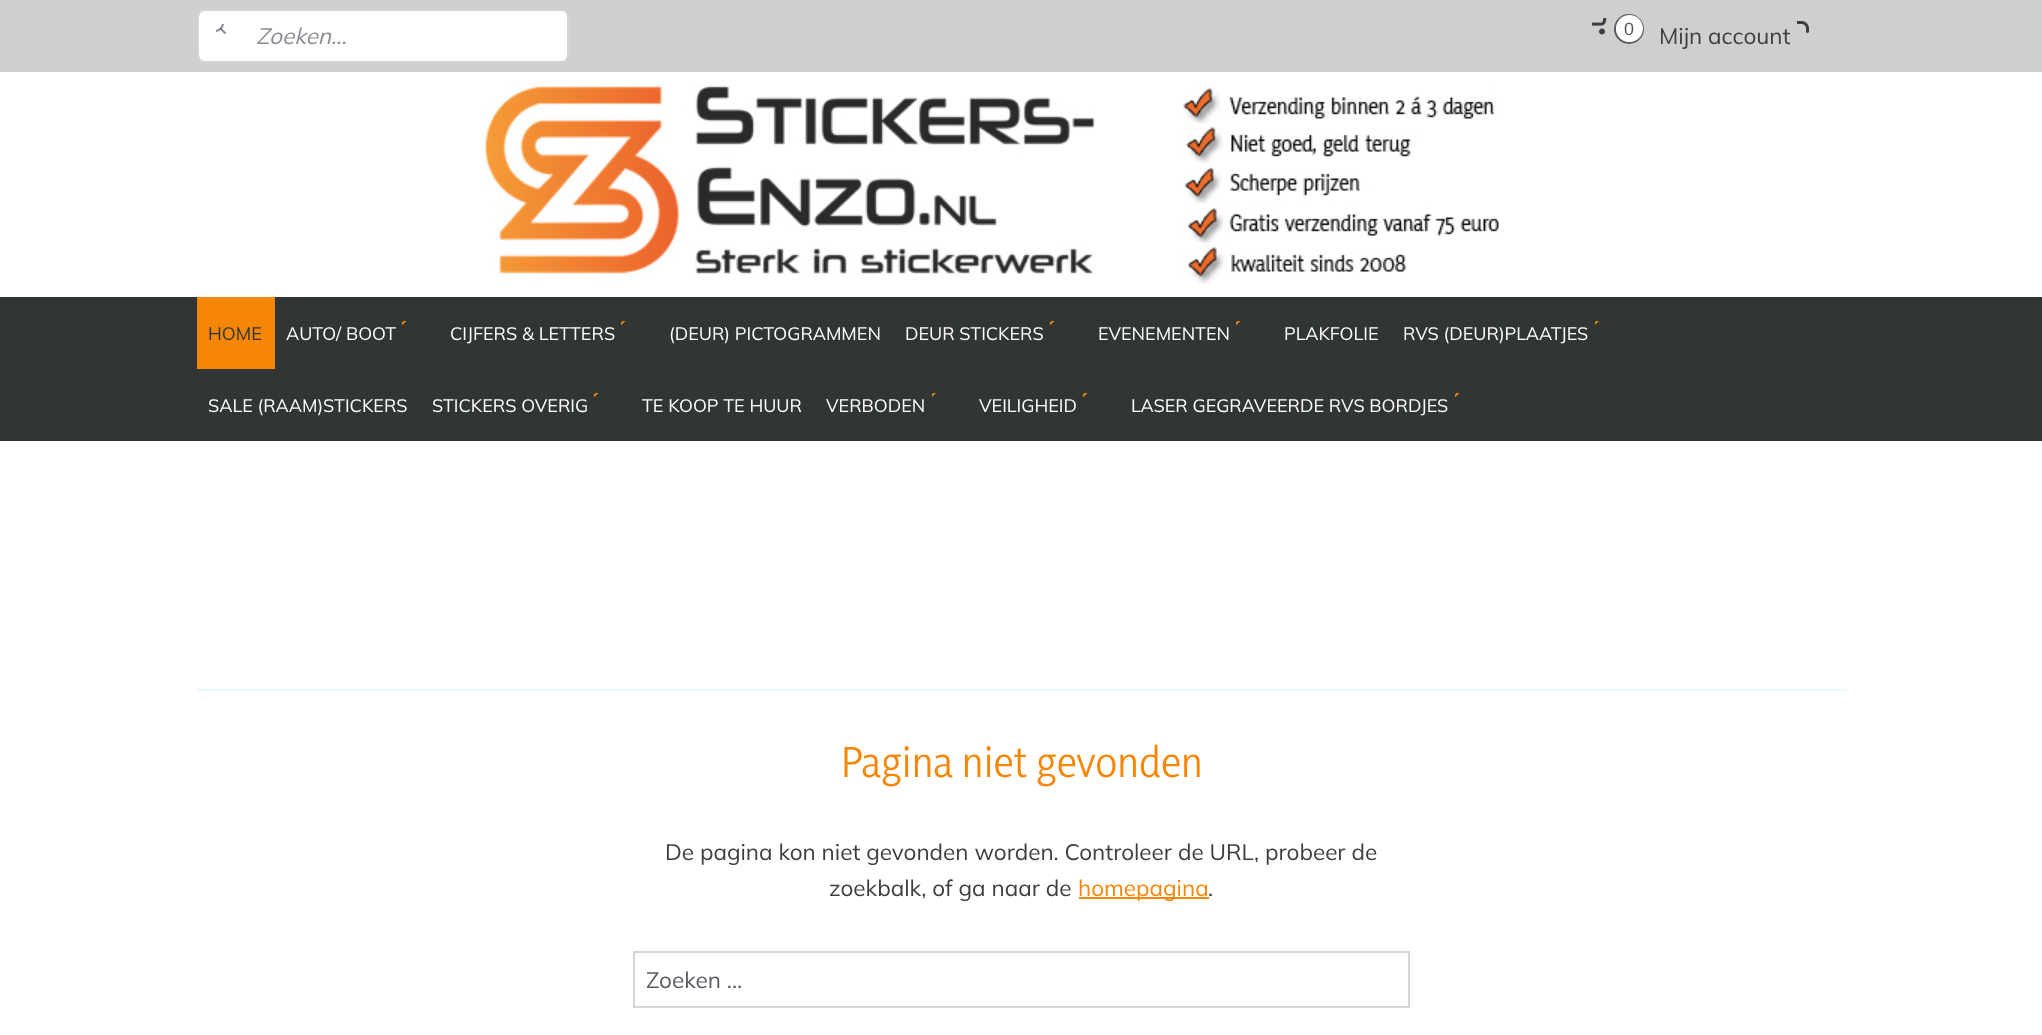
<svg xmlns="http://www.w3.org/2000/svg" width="2042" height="1035">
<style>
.a{font:italic 22.5px Mulish;fill:#898c91}
.b{font:18px Liberation Sans;fill:#575b62}
.c{font:22.5px Mulish;fill:#3b3f3e}
.d{font:18px Mulish;fill:#313534}
.e{font:18px Mulish;fill:#fff}
.f{font:39px Yaldevi;fill:#f58607}
.g{font:22.5px Mulish;fill:#f58607}
.h{font:22.5px Mulish;fill:#575b62}
</style>
<defs>
<clipPath id="clip1"><path d="M647 966h750v29H647z"/></clipPath>
</defs>
<rect width="100%" height="100%" fill="#fff"/>
<path fill="#d1cfcd" d="M0 0h2042v72H0z"/>
<rect fill="#fff" stroke="#d3d5d9" stroke-width="2" x="198" y="10" width="370" height="52" rx="7"/>
<image href="1.png" x="216" y="24" width="10" height="10"/>
<image href="2.png" x="1592" y="18" width="15" height="17"/>
<circle fill="none" stroke="#575b62" stroke-width="2" cx="1629" cy="29" r="14"/>
<circle fill="#fff" cx="1629.5" cy="28.5" r="13.5"/>
<image href="3.png" x="1797" y="21" width="12" height="12"/>
<image href="4.png" x="484" y="85" width="1015" height="199"/>
<path fill="#313534" d="M0 297h2042v144H0z"/>
<path fill="#f58607" d="M197 297h78v72H197z"/>
<image href="5.png" x="402" y="321" width="5" height="4"/>
<image href="5.png" x="621" y="321" width="5" height="4"/>
<image href="5.png" x="1050" y="321" width="5" height="4"/>
<image href="5.png" x="1236" y="321" width="5" height="4"/>
<image href="6.png" x="1595" y="321" width="4" height="4"/>
<image href="5.png" x="594" y="393" width="5" height="4"/>
<image href="6.png" x="932" y="393" width="4" height="4"/>
<image href="5.png" x="1083" y="393" width="5" height="4"/>
<image href="5.png" x="1455" y="393" width="5" height="4"/>
<path fill="#ebf8fe" d="M197 689h1650v2H197z"/>
<path fill="#f58607" d="M1079 897h130v2H1079z"/>
<path fill="none" stroke="#d3d5d9" stroke-width="2" d="M634 952h775v55H634z"/>
<text class="a" x="256" y="44">Zoeken...</text>
<text class="b" x="1624" y="35">0</text>
<text class="c" x="1659" y="44">Mijn account</text>
<text class="d" x="208" y="340">HOME</text>
<text class="e" x="286" y="340">AUTO/ BOOT</text>
<text class="e" x="450" y="340">CIJFERS &amp; LETTERS</text>
<text class="e" x="669" y="340">(DEUR) PICTOGRAMMEN</text>
<text class="e" x="905" y="340">DEUR STICKERS</text>
<text class="e" x="1098" y="340">EVENEMENTEN</text>
<text class="e" x="1284" y="340">PLAKFOLIE</text>
<text class="e" x="1403" y="340">RVS (DEUR)PLAATJES</text>
<text class="e" x="208" y="412">SALE (RAAM)STICKERS</text>
<text class="e" x="432" y="412">STICKERS OVERIG</text>
<text class="e" x="642" y="412">TE KOOP TE HUUR</text>
<text class="e" x="826" y="412">VERBODEN</text>
<text class="e" x="979" y="412">VEILIGHEID</text>
<text class="e" x="1131" y="412">LASER GEGRAVEERDE RVS BORDJES</text>
<text class="f" x="841" y="777">Pagina niet gevonden</text>
<text class="c" x="665" y="860">De pagina kon niet gevonden worden. Controleer de URL, probeer de</text>
<text class="c" x="829" y="896">zoekbalk, of ga naar de</text>
<text class="g" x="1078" y="896">homepagina</text>
<text class="c" x="1208" y="896">.</text>
<g clip-path="url(#clip1)">
<text class="h" x="646" y="988">Zoeken ...</text>
</g>
</svg>
